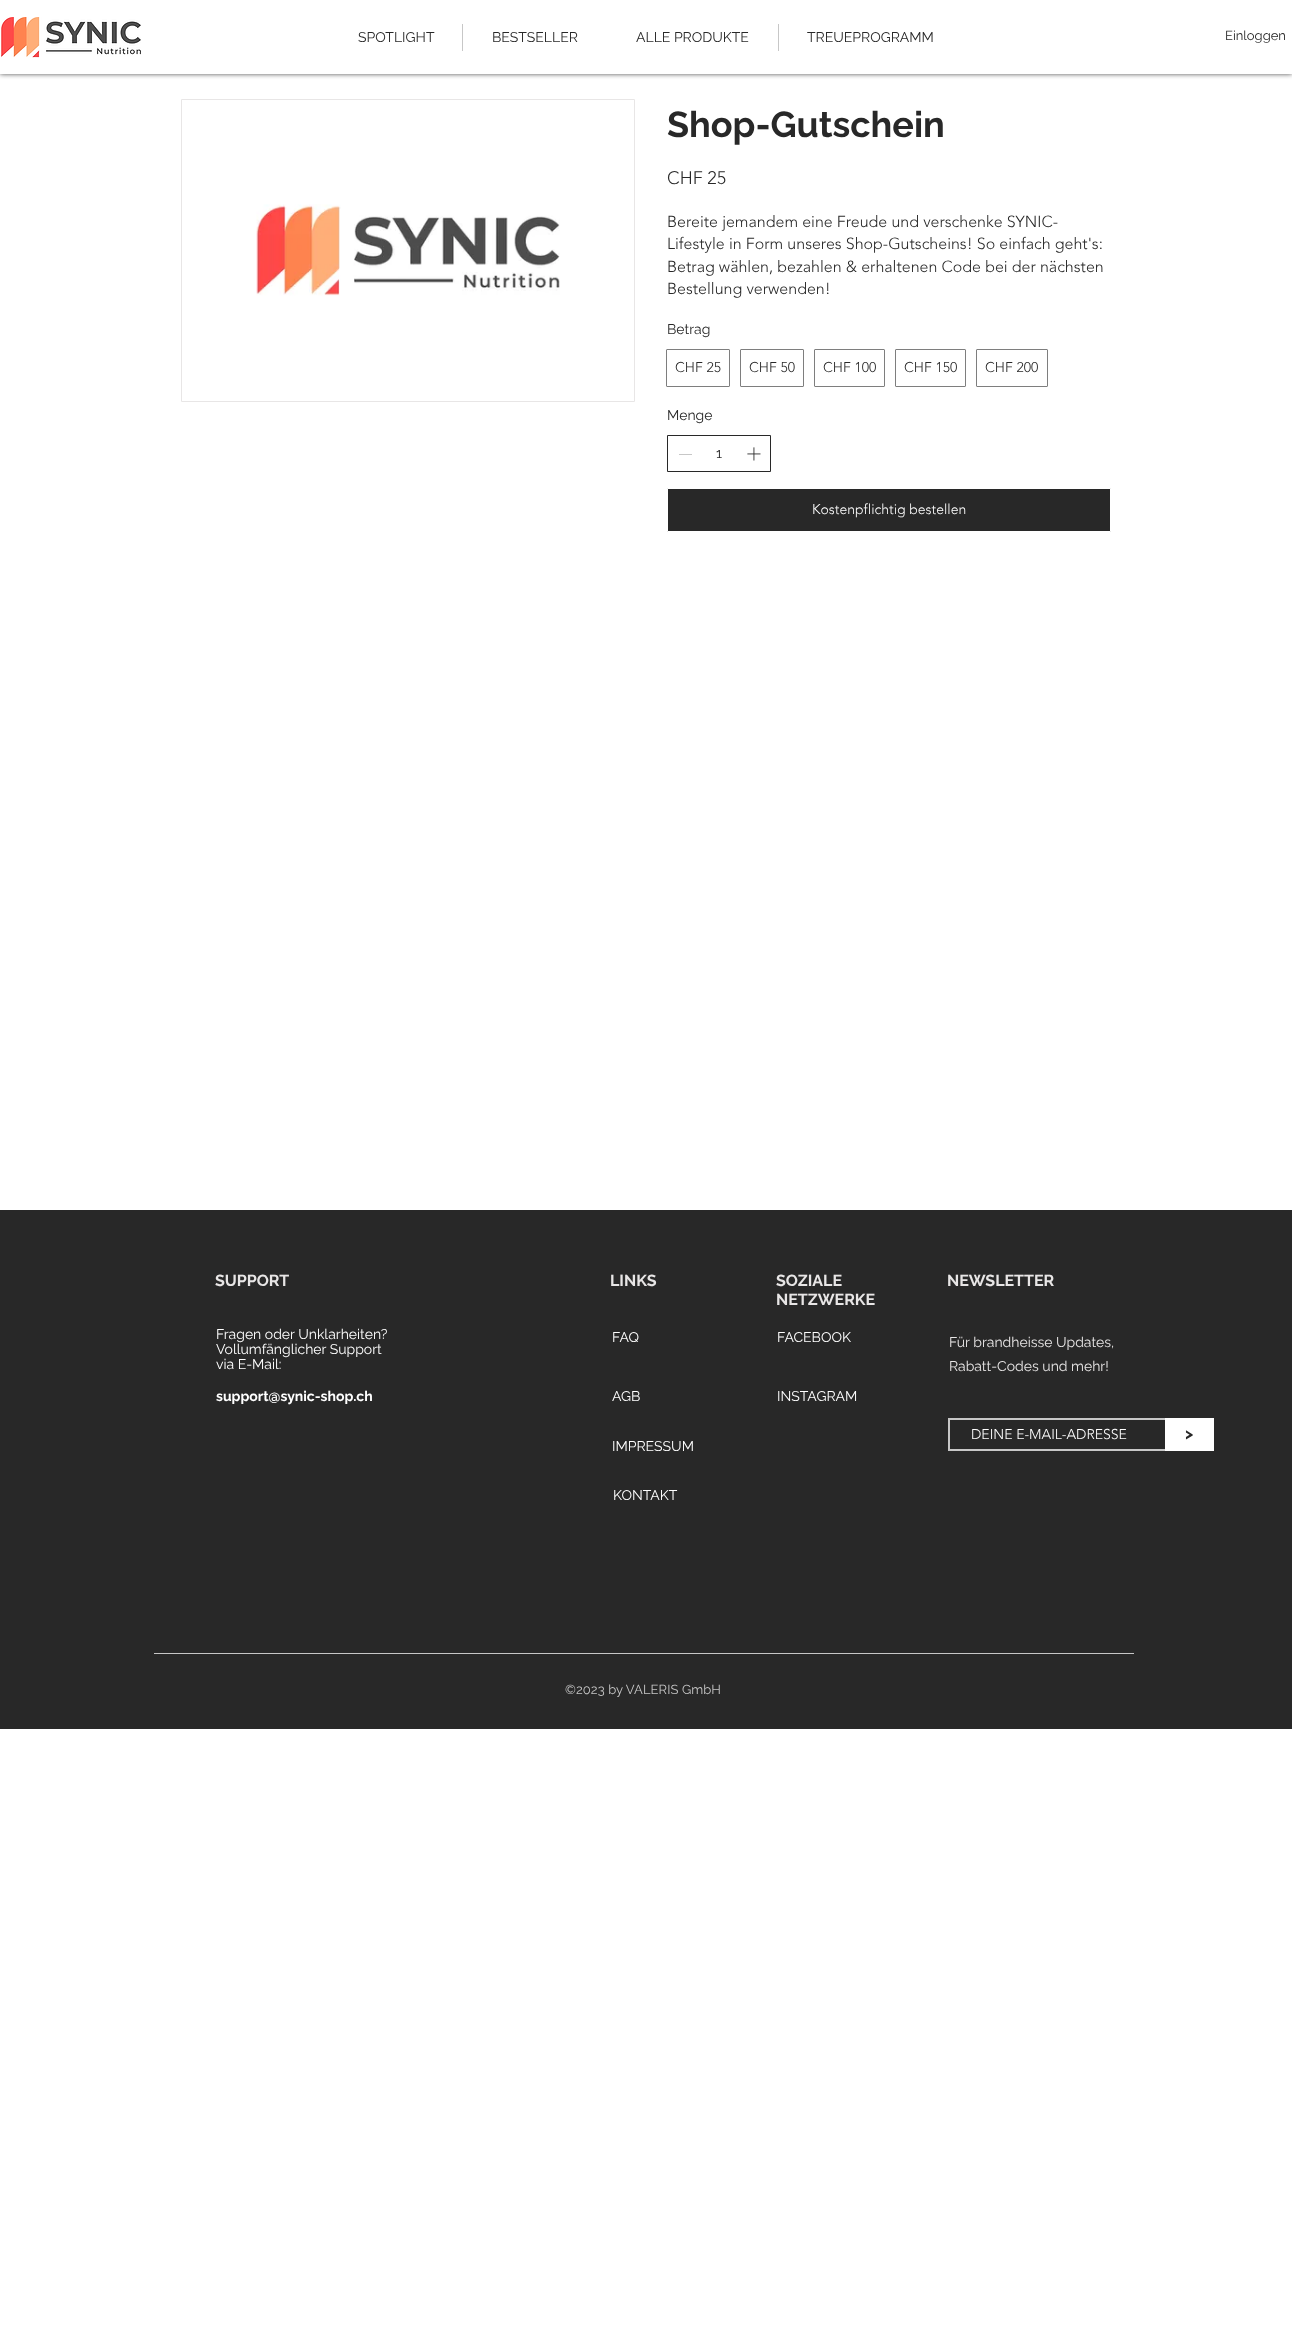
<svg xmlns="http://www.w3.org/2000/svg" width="1292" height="2333">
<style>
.a{font:13px Raleway;fill:#282828}
.b{font:14px Raleway;fill:#282828}
.c{font:bold 36px Raleway;fill:#282828}
.d{font:300 18px 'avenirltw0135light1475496';fill:#282828}
.e{font:300 16px 'avenirltw0135light1475496';fill:#282828}
.f{font:300 14px 'avenirltw0135light1475496';fill:#282828}
.g{font:300 14px 'avenirltw0135light1475496';fill:#fff}
.h{font:bold 16px Raleway;fill:#e8e6e6}
.i{font:14px Raleway;fill:#fff}
.j{font:14px Raleway;fill:#e8e6e6}
.k{font:bold 16px Raleway;fill:#282828}
.l{font:bold 14px Raleway;fill:#fff}
.m{font:13px Raleway;letter-spacing:0.1px;fill:#c7c7c7}
</style>
<rect width="100%" height="100%" fill="#fff"/>
<path fill="#000000b3" filter="blur(2.5px)" d="M0 0h1292v74H0z"/>
<path fill="#fff" d="M0 0h1292v74H0z"/>
<image href="1.png" x="1" y="17" width="140" height="41"/>
<path fill="#c7c7c7" d="M462 24h1v27H462z"/>
<path fill="#c7c7c7" d="M778 24h1v27H778z"/>
<path fill="none" stroke="#e8e6e6" d="M181.5 99.5h453v302H181.5z"/>
<image href="2.png" x="256" y="204" width="304" height="92"/>
<rect fill="none" stroke="#7e7e7e" x="666.5" y="349.5" width="63" height="37" rx="0.5"/>
<rect fill="none" stroke="#7e7e7e" x="740.5" y="349.5" width="63" height="37" rx="0.5"/>
<rect fill="none" stroke="#7e7e7e" x="814.5" y="349.5" width="70" height="37" rx="0.5"/>
<rect fill="none" stroke="#7e7e7e" x="895.5" y="349.5" width="70" height="37" rx="0.5"/>
<rect fill="none" stroke="#7e7e7e" x="976.5" y="349.5" width="71" height="37" rx="0.5"/>
<path fill="none" stroke="#282828" d="M667.5 435.5h103v36H667.5z"/>
<path fill="#c7c7c7" d="M679 454h13v1H679z"/>
<image href="3.png" x="747" y="447" width="14" height="14"/>
<rect fill="#282828" stroke="#fff" x="667.5" y="488.5" width="443" height="43" rx="0.5"/>
<path fill="#282828" d="M0 1210h1292v519H0z"/>
<path fill="none" stroke="#c7c7c7" stroke-width="2" d="M949 1419h220v31H949z"/>
<path fill="#fff" d="M1165 1418h49v33H1165z"/>
<path fill="#c7c7c7" d="M154 1653h980v1H154z"/>
<text class="a" x="1225" y="40">Einloggen</text>
<text class="b" x="358" y="42">SPOTLIGHT</text>
<text class="b" x="492" y="42">BESTSELLER</text>
<text class="b" x="636" y="42">ALLE PRODUKTE</text>
<text class="b" x="807" y="42">TREUEPROGRAMM</text>
<text class="c" x="667" y="137">Shop-Gutschein</text>
<text class="d" x="667" y="184">CHF 25</text>
<text class="e" x="667" y="227">Bereite jemandem eine Freude und verschenke SYNIC-</text>
<text class="e" x="667" y="249">Lifestyle in Form unseres Shop-Gutscheins! So einfach geht's:</text>
<text class="e" x="667" y="272">Betrag wählen, bezahlen &amp; erhaltenen Code bei der nächsten</text>
<text class="e" x="667" y="294">Bestellung verwenden!</text>
<text class="b" x="667" y="334">Betrag</text>
<text class="f" x="675" y="372">CHF 25</text>
<text class="f" x="749" y="372">CHF 50</text>
<text class="f" x="823" y="372">CHF 100</text>
<text class="f" x="904" y="372">CHF 150</text>
<text class="f" x="985" y="372">CHF 200</text>
<text class="b" x="667" y="420">Menge</text>
<text class="b" x="716" y="458">1</text>
<text class="g" x="812" y="514">Kostenpflichtig bestellen</text>
<text class="h" x="215" y="1286">SUPPORT</text>
<text class="h" x="610" y="1286">LINKS</text>
<text class="h" x="776" y="1286">SOZIALE</text>
<text class="h" x="776" y="1305">NETZWERKE</text>
<text class="h" x="947" y="1286">NEWSLETTER</text>
<text class="i" x="216" y="1339">Fragen oder Unklarheiten?</text>
<text class="i" x="216" y="1354">Vollumfänglicher Support</text>
<text class="i" x="216" y="1369">via E-Mail:</text>
<text class="i" x="612" y="1342">FAQ</text>
<text class="i" x="777" y="1342">FACEBOOK</text>
<text class="j" x="949" y="1347">Für brandheisse Updates,</text>
<text class="j" x="949" y="1371">Rabatt-Codes und mehr!</text>
<text class="g" x="971" y="1439">DEINE E-MAIL-ADRESSE</text>
<text class="k" x="1185" y="1439">&gt;</text>
<text class="l" x="216" y="1401">support@synic-shop.ch</text>
<text class="i" x="612" y="1401">AGB</text>
<text class="i" x="777" y="1401">INSTAGRAM</text>
<text class="i" x="612" y="1451">IMPRESSUM</text>
<text class="i" x="613" y="1500">KONTAKT</text>
<text class="m" x="565" y="1694">©2023 by VALERIS GmbH</text>
</svg>
